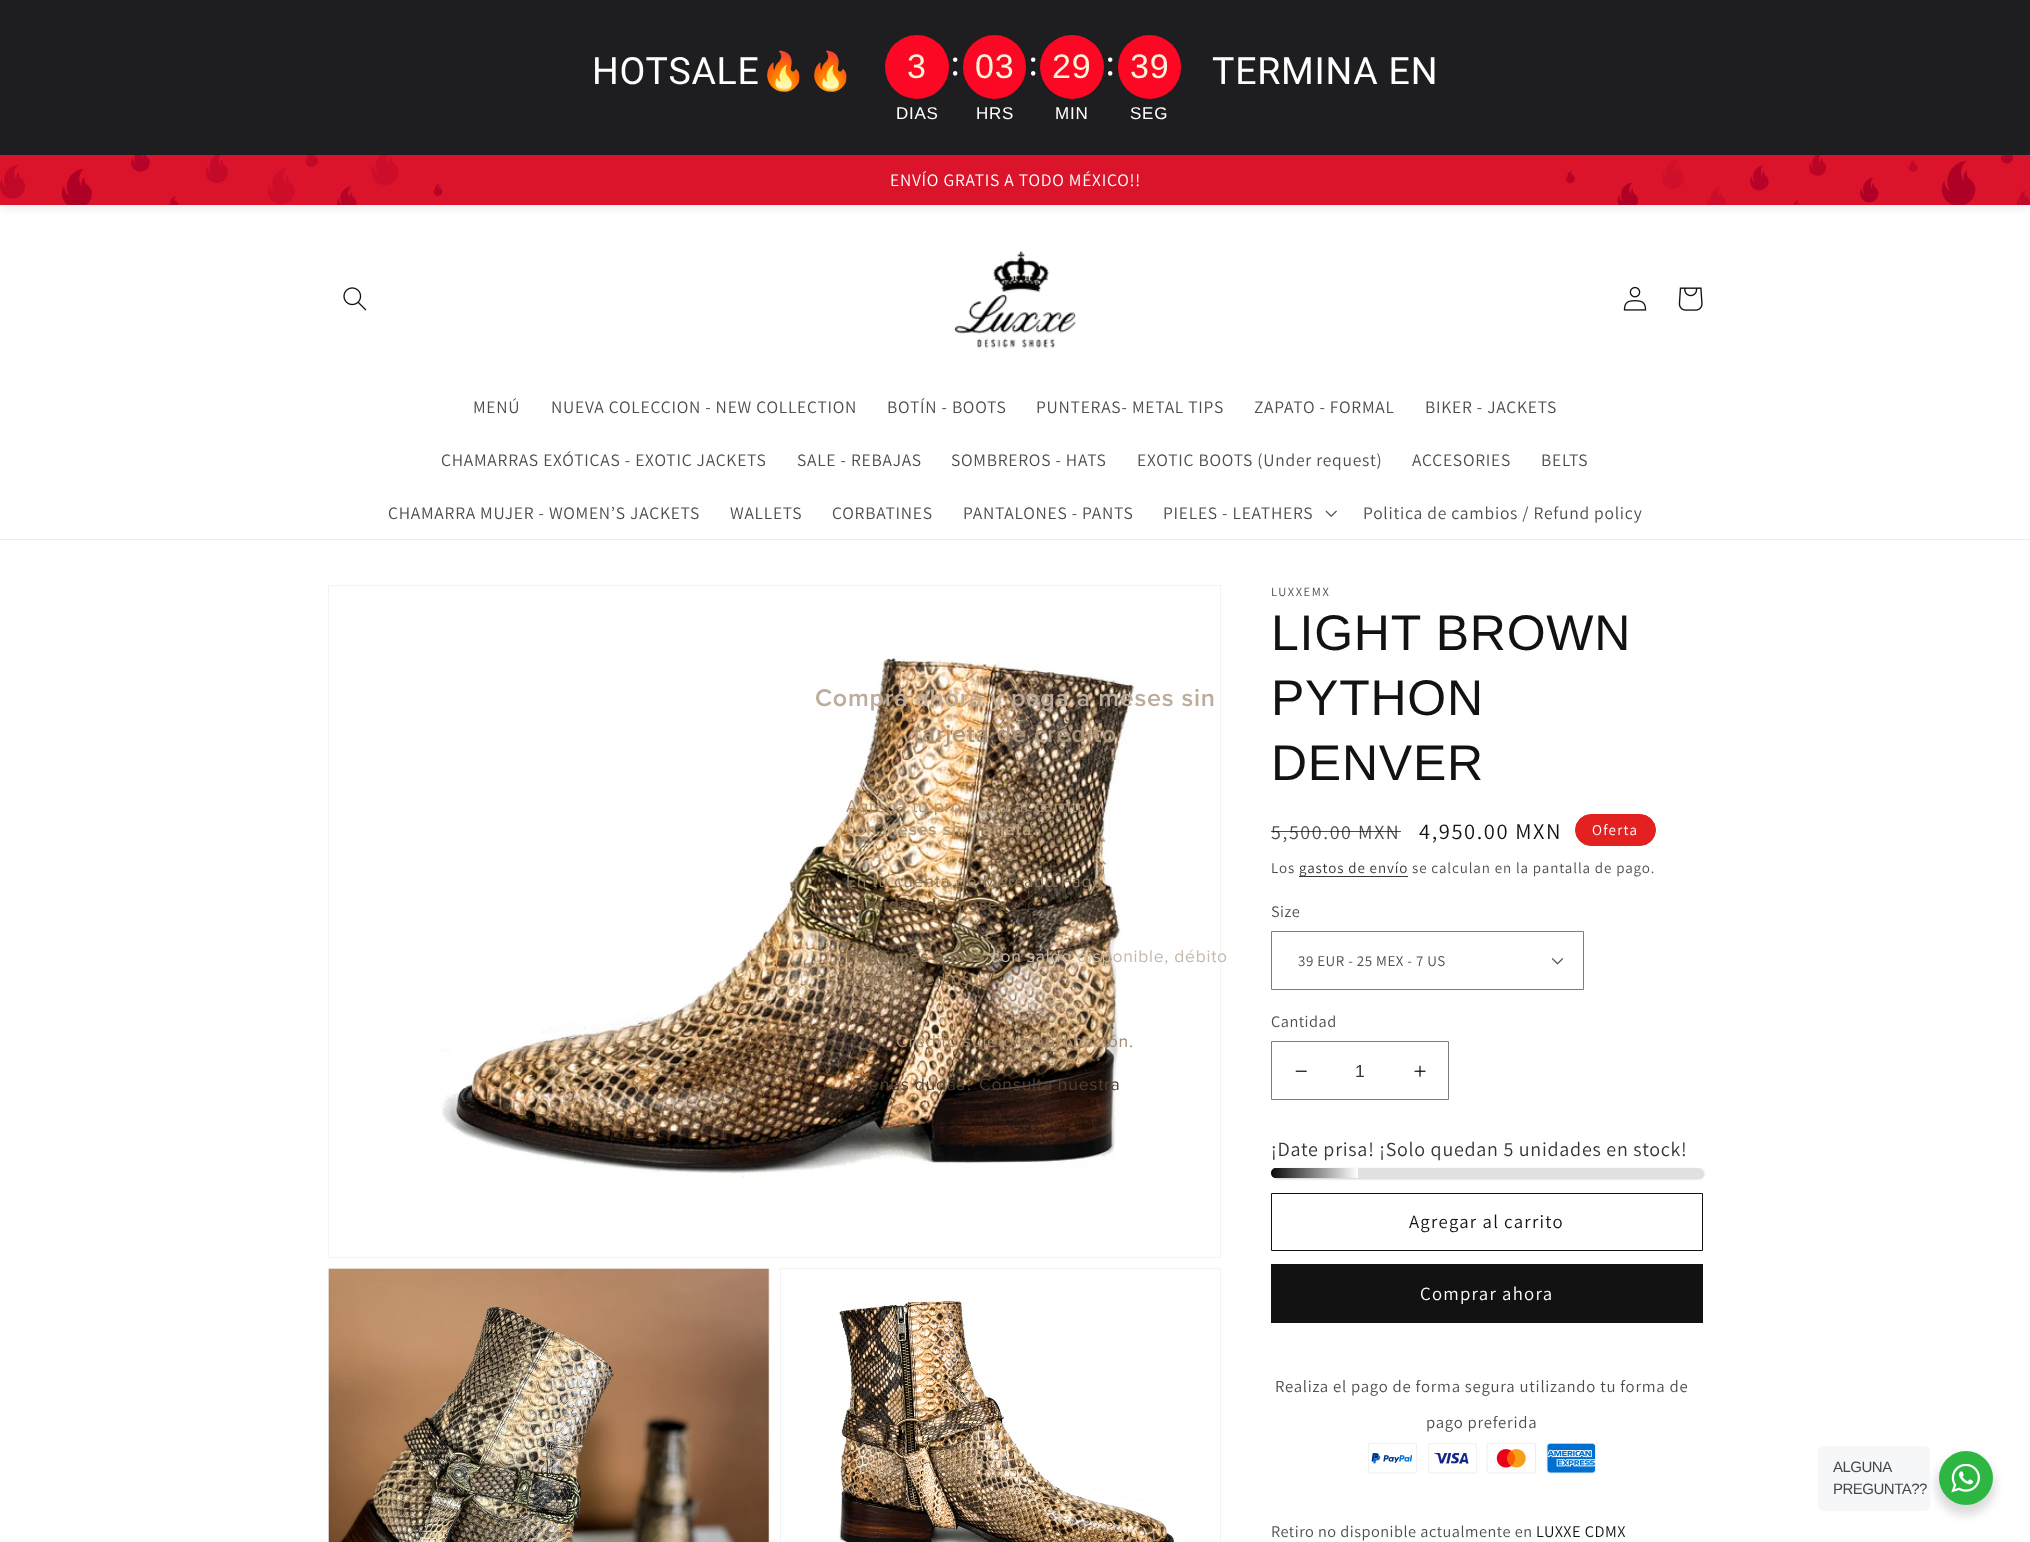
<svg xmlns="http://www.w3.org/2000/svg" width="2030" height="1542">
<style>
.a{font:37.5px Roboto;letter-spacing:0.75px;fill:#fff}
.b{font:37.5px Noto Color Emoji;letter-spacing:0.75px;fill:#fff}
.c{font:34px Liberation Sans;letter-spacing:0.75px;fill:#fff3d9}
.d{font:37.5px Liberation Serif;letter-spacing:0.75px;fill:#fff}
.e{font:17px Liberation Sans;letter-spacing:0.75px;fill:#fff}
.f{font:17.5px Assistant;letter-spacing:0.75px;fill:#fff}
.g{font:17.5px Assistant;letter-spacing:0.75px;fill:#4d4d4d}
.h{font:600 25px Proxima Nova;letter-spacing:0.75px;fill:#bcac9b}
.i{font:600 25px Proxima Nova;letter-spacing:0.75px;fill:#ac957b}
.j{font:17.5px Proxima Nova;letter-spacing:0.75px;fill:#ad9273}
.k{font:bold 17.5px Proxima Nova;letter-spacing:0.75px;fill:#b79c7b}
.l{font:15px Proxima Nova;letter-spacing:0.75px;fill:#615336}
.m{font:17.5px Proxima Nova;letter-spacing:0.75px;fill:#8d785d}
.n{font:bold 17.5px Proxima Nova;letter-spacing:0.75px;fill:#6f5a40}
.o{font:17.5px Proxima Nova;letter-spacing:0.75px;fill:#463a2c}
.p{font:15px Proxima Nova;letter-spacing:0.75px;fill:#a69077}
.q{font:bold 17.5px Proxima Nova;letter-spacing:0.75px;fill:#877256}
.r{font:17.5px Proxima Nova;letter-spacing:0.75px;fill:#c3b9ac}
.s{font:17.5px Proxima Nova;letter-spacing:0.75px;fill:#a48a6d}
.t{font:17.5px Proxima Nova;letter-spacing:0.75px;fill:#514133}
.u{font:12.5px Assistant;letter-spacing:1.6px;fill:#4d4d4d}
.v{font:50px Liberation Sans;letter-spacing:0.75px;fill:#121212}
.w{font:20px Assistant;letter-spacing:1.6px;fill:#4d4d4d}
.x{font:22.5px Assistant;letter-spacing:1.6px;fill:#121212}
.y{font:15px Assistant;letter-spacing:1.25px;fill:#fff}
.z{font:15px Assistant;letter-spacing:0.9px;fill:#4d4d4d}
.a1{font:15px Assistant;letter-spacing:0.9px;fill:#353535}
.b1{font:16.25px Assistant;letter-spacing:0.5px;fill:#4d4d4d}
.c1{font:15px Assistant;letter-spacing:0.5px;fill:#4d4d4d}
.d1{font:17.5px Liberation Sans;fill:#353535}
.e1{font:20px Assistant;letter-spacing:0.75px;fill:#353535}
.f1{font:18.75px Assistant;letter-spacing:1.25px;fill:#121212}
.g1{font:18.75px Assistant;letter-spacing:1.25px;fill:#fff}
.h1{font:16.7px Assistant;letter-spacing:0.75px;fill:#4d4d4d}
.i1{font:16.25px Assistant;letter-spacing:0.5px;fill:#121212}
.j1{font:15px Liberation Sans;letter-spacing:-0.5px;fill:#43474e}
</style>
<defs>
<linearGradient id="g1" gradientUnits="userSpaceOnUse" x1="1271" y1="1173" x2="1358" y2="1173"><stop offset="0" stop-color="#090909"/><stop offset="1" stop-color="#fff"/></linearGradient>
</defs>
<rect width="100%" height="100%" fill="#fff"/>
<path fill="#0000001c" filter="blur(5.5px)" d="M-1 154h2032v52H-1z"/>
<path fill="#1e1e20" d="M0 0h2030v155H0z"/>
<circle fill="#fc0825" cx="917" cy="67" r="32"/>
<rect fill="#fc0825" x="963" y="35" width="63" height="64" rx="31.5"/>
<circle fill="#fc0825" cx="1072" cy="67" r="32"/>
<rect fill="#fc0825" x="1118" y="35" width="63" height="64" rx="31.5"/>
<path fill="#db142c" d="M0 155h2030v50H0z"/>
<image href="1.png" x="0" y="155" width="2030" height="50"/>
<path fill="#ececec" d="M0 539h2030v1H0z"/>
<image href="2.png" x="343" y="287" width="24" height="24"/>
<image href="3.png" x="954" y="251" width="122" height="97"/>
<image href="4.png" x="1623" y="286" width="24" height="25"/>
<image href="5.png" x="1678" y="287" width="25" height="24"/>
<image href="6.png" x="1325" y="510" width="12" height="7"/>
<path fill="none" stroke="#f3f3f3" d="M328.5 585.5h892v672H328.5z"/>
<image href="7.png" x="441" y="656" width="694" height="522"/>
<path fill="none" stroke="#f3f3f3" d="M328.5 1268.5h441v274H328.5z"/>
<image href="8.png" x="328" y="1268" width="441" height="274"/>
<path fill="none" stroke="#f3f3f3" d="M780.5 1268.5h440v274H780.5z"/>
<image href="9.png" x="839" y="1299" width="336" height="243"/>
<rect fill="#e22120" stroke="#e22120" x="1575.5" y="814.5" width="80" height="31" rx="15.5"/>
<path fill="#363636" d="M1299 876h109v1H1299z"/>
<image href="10.png" x="1551" y="958" width="13" height="7"/>
<path fill="none" stroke="#7d7d7d" d="M1271.5 931.5h312v58H1271.5z"/>
<image href="11.png" x="1295" y="1070" width="12" height="2"/>
<image href="12.png" x="1414" y="1065" width="12" height="12"/>
<path fill="none" stroke="#7d7d7d" d="M1271.5 1041.5h177v58H1271.5z"/>
<rect fill="#00000033" filter="blur(1px)" x="1273" y="1169" width="431" height="10" rx="5"/>
<rect fill="#e1e1e1" x="1271" y="1168" width="432" height="10" rx="5"/>
<path fill="url(#g1)" d="M1276 1168h82v10h-82c-3 0-5-2-5-5c0-3 2-5 5-5z"/>
<path fill="none" stroke="#121212" d="M1271.5 1193.5h431v57H1271.5z"/>
<path fill="#121212" d="M1271 1264h432v59H1271z"/>
<image href="13.png" x="1368" y="1443" width="49" height="31"/>
<image href="14.png" x="1428" y="1443" width="49" height="31"/>
<image href="15.png" x="1486" y="1443" width="50" height="31"/>
<image href="16.png" x="1546" y="1443" width="50" height="31"/>
<rect fill="#00000024" filter="blur(5px)" x="1936" y="1456" width="59" height="59" rx="29.5"/>
<rect fill="#f5f7f9" x="1818" y="1446" width="112" height="65" rx="5"/>
<circle fill="#2db742" cx="1966" cy="1478" r="27"/>
<image href="17.png" x="1951" y="1464" width="29" height="29"/>
<text class="a" x="592" y="84">HOTSALE</text>
<text class="b" x="760" y="84">🔥🔥</text>
<text class="c" x="907" y="78">3</text>
<text class="d" x="950" y="75">:</text>
<text class="c" x="975" y="78">03</text>
<text class="d" x="1028" y="75">:</text>
<text class="c" x="1052" y="78">29</text>
<text class="d" x="1105" y="75">:</text>
<text class="c" x="1130" y="78">39</text>
<text class="e" x="896" y="119">DIAS</text>
<text class="e" x="976" y="119">HRS</text>
<text class="e" x="1055" y="119">MIN</text>
<text class="e" x="1130" y="119">SEG</text>
<text class="a" x="1212" y="84">TERMINA EN</text>
<text class="f" x="890" y="186">ENVÍO GRATIS A TODO MÉXICO!!</text>
<text class="g" x="473" y="413">MENÚ</text>
<text class="g" x="551" y="413">NUEVA COLECCION - NEW COLLECTION</text>
<text class="g" x="887" y="413">BOTÍN - BOOTS</text>
<text class="g" x="1036" y="413">PUNTERAS- METAL TIPS</text>
<text class="g" x="1254" y="413">ZAPATO - FORMAL</text>
<text class="g" x="1425" y="413">BIKER - JACKETS</text>
<text class="g" x="441" y="466">CHAMARRAS EXÓTICAS - EXOTIC JACKETS</text>
<text class="g" x="797" y="466">SALE - REBAJAS</text>
<text class="g" x="951" y="466">SOMBREROS - HATS</text>
<text class="g" x="1137" y="466">EXOTIC BOOTS (Under request)</text>
<text class="g" x="1412" y="466">ACCESORIES</text>
<text class="g" x="1541" y="466">BELTS</text>
<text class="g" x="388" y="519">CHAMARRA MUJER - WOMEN’S JACKETS</text>
<text class="g" x="730" y="519">WALLETS</text>
<text class="g" x="832" y="519">CORBATINES</text>
<text class="g" x="963" y="519">PANTALONES - PANTS</text>
<text class="g" x="1163" y="519">PIELES - LEATHERS</text>
<text class="g" x="1363" y="519">Politica de cambios / Refund policy</text>
<text class="h" x="815" y="706">Compra ahora y paga a meses sin</text>
<text class="i" x="913" y="742">tarjeta de crédito</text>
<text class="j" x="846" y="812">Agrega tu producto al carrito y</text>
<text class="k" x="846" y="835">con Meses sin Tarjeta.</text>
<text class="l" x="805" y="898">2</text>
<text class="m" x="846" y="887">En tu cuenta de Mercado Pago,</text>
<text class="n" x="846" y="910">cantidad de meses</text>
<text class="o" x="1027" y="910">c</text>
<text class="p" x="805" y="973">3</text>
<text class="q" x="846" y="962">Paga mes a mes</text>
<text class="r" x="991" y="962">con saldo disponible, débito</text>
<text class="m" x="846" y="985">u otros medios.</text>
<text class="s" x="896" y="1047">Crédito sujeto a aprobación.</text>
<text class="t" x="846" y="1090">¿Tienes dudas? Consulta nuestra</text>
<text class="u" x="1271" y="596">LUXXEMX</text>
<text class="v" x="1271" y="650">LIGHT BROWN</text>
<text class="v" x="1271" y="715">PYTHON</text>
<text class="v" x="1271" y="780">DENVER</text>
<text class="w" x="1271" y="839">5,500.00 MXN</text>
<path fill="#121212bf" d="M1271 831h130v1H1271z"/>
<text class="x" x="1419" y="839">4,950.00 MXN</text>
<text class="y" x="1592" y="835">Oferta</text>
<text class="z" x="1271" y="873">Los</text>
<text class="a1" x="1299" y="873">gastos de envío</text>
<text class="z" x="1412" y="873">se calculan en la pantalla de pago.</text>
<text class="b1" x="1271" y="917">Size</text>
<text class="c1" x="1298" y="966">39 EUR - 25 MEX - 7 US</text>
<text class="b1" x="1271" y="1027">Cantidad</text>
<text class="d1" x="1355" y="1077">1</text>
<text class="e1" x="1271" y="1156">¡Date prisa! ¡Solo quedan 5 unidades en stock!</text>
<text class="f1" x="1409" y="1228">Agregar al carrito</text>
<text class="g1" x="1420" y="1300">Comprar ahora</text>
<text class="h1" x="1275" y="1392">Realiza el pago de forma segura utilizando tu forma de</text>
<text class="h1" x="1426" y="1428">pago preferida</text>
<text class="b1" x="1271" y="1537">Retiro no disponible actualmente en</text>
<text class="i1" x="1536" y="1537">LUXXE CDMX</text>
<text class="j1" x="1833" y="1472">ALGUNA</text>
<text class="j1" x="1833" y="1494">PREGUNTA??</text>
</svg>
